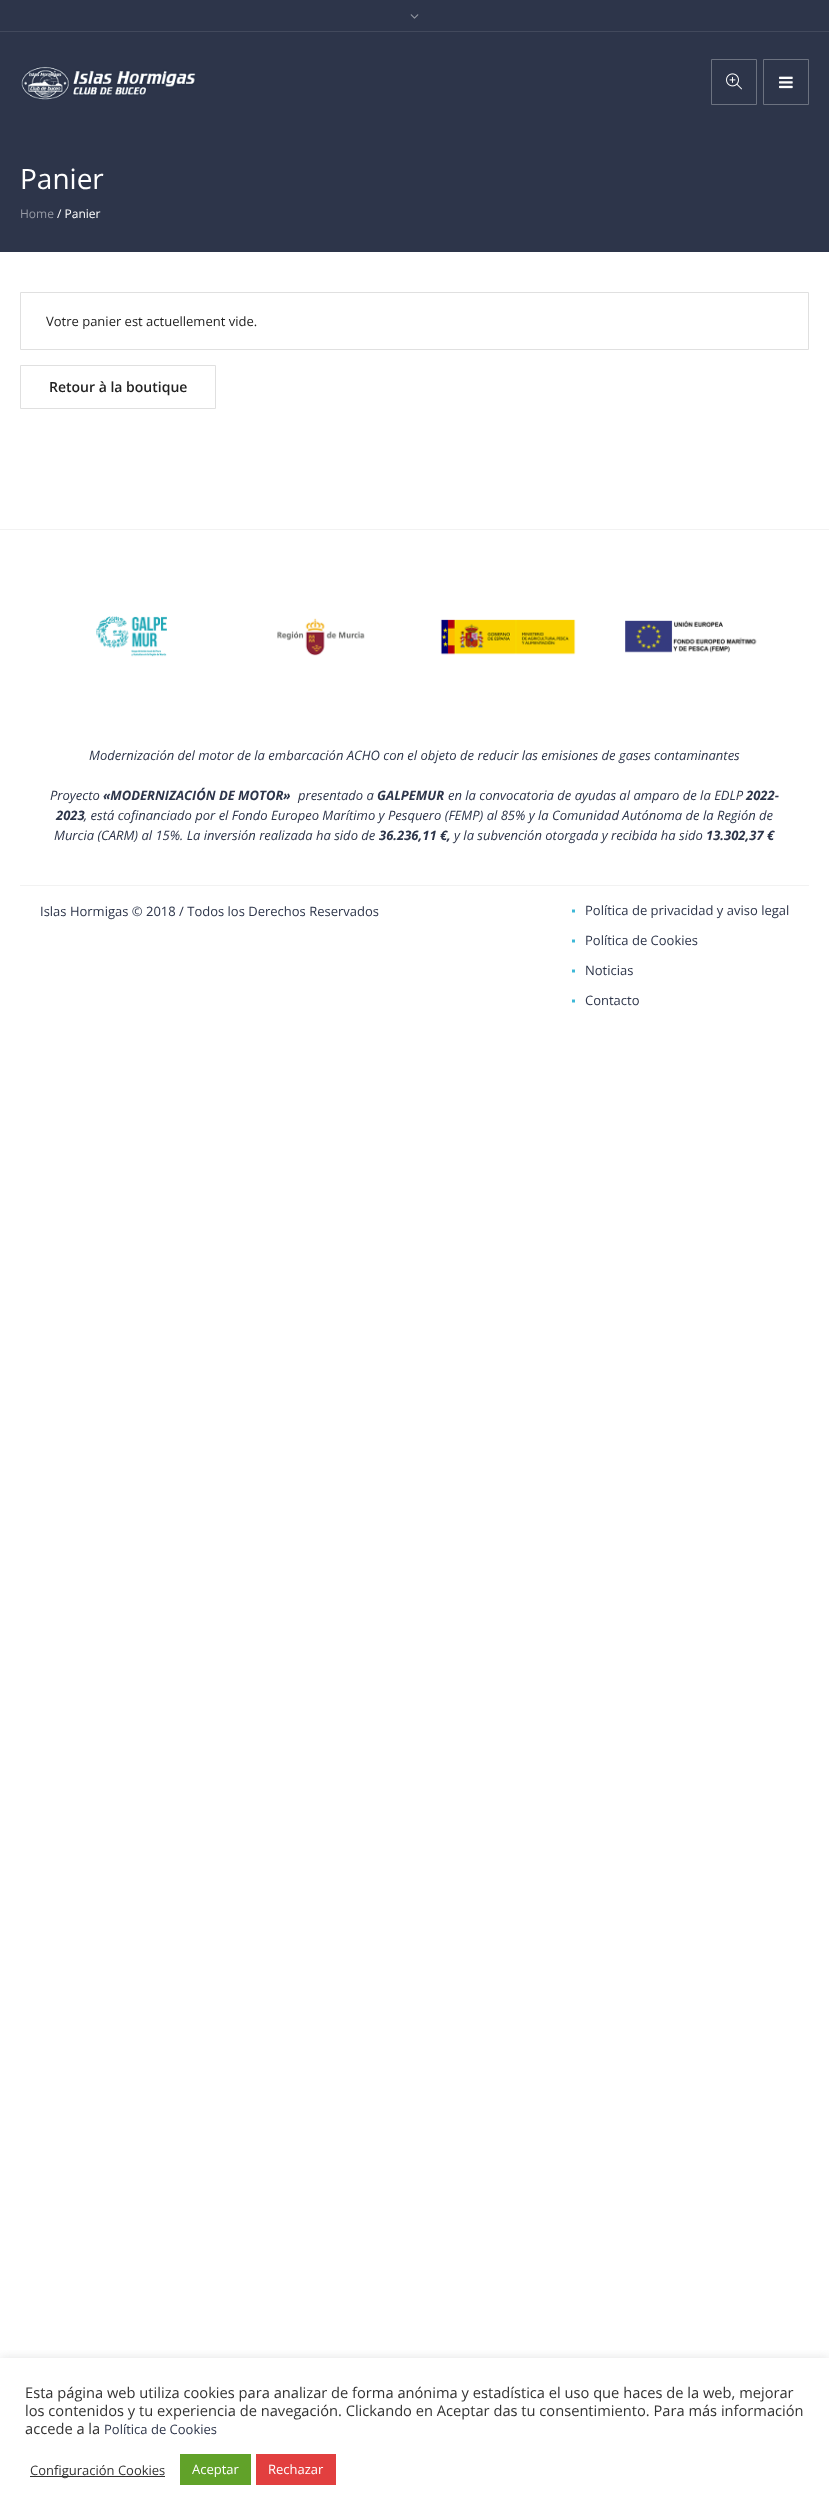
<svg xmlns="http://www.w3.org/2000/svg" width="829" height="2515">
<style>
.a{font:28px Open Sans;fill:#fff}
.b{font:12px Open Sans;fill:#969aa5}
.c{font:12px Open Sans;fill:#fff}
.d{font:13px Open Sans;fill:#222}
.e{font:600 14px Open Sans;fill:#222}
.f{font:italic 13px Open Sans;fill:#2d354a}
.g{font:italic bold 13px Open Sans;fill:#2d354a}
.h{font:13px Open Sans;fill:#2d354a}
.i{font:14.67px Open Sans;fill:#333}
.j{font:13px Open Sans;fill:#333}
.k{font:13px Open Sans;fill:#fff}
</style>
<defs>
<clipPath id="clip1"><path d="M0 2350h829v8H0z"/></clipPath>
</defs>
<rect width="100%" height="100%" fill="#fff"/>
<path fill="#2d354a" d="M0 0h829v31H0z"/>
<path fill="#42495c" d="M0 31h829v1H0z"/>
<image href="1.png" x="410" y="14" width="9" height="5"/>
<path fill="#2d354a" d="M0 32h829v220H0z"/>
<image href="2.png" x="21" y="66" width="175" height="34"/>
<path fill="none" stroke="#6c7280" d="M711.5 59.5h45v45H711.5z"/>
<image href="3.png" x="726" y="73" width="16" height="17"/>
<path fill="none" stroke="#6c7280" d="M763.5 59.5h45v45H763.5z"/>
<image href="4.png" x="779" y="76" width="14" height="13"/>
<path fill="none" stroke="#e0e0e0" d="M20.5 292.5h788v57H20.5z"/>
<path fill="none" stroke="#e0e0e0" d="M20.5 365.5h195v43H20.5z"/>
<path fill="#f2f2f2" d="M0 529h829v1H0z"/>
<image href="5.png" x="96" y="616" width="71" height="41"/>
<image href="6.png" x="277" y="618" width="88" height="38"/>
<image href="7.png" x="440" y="619" width="136" height="36"/>
<image href="8.png" x="625" y="620" width="132" height="33"/>
<path fill="#f2f2f2" d="M20 885h789v1H20z"/>
<path fill="#3eb8d7" d="M575 909.5v3h-3v-3z"/>
<path fill="#3eb8d7" d="M575 939.5v3h-3v-3z"/>
<path fill="#3eb8d7" d="M575 969.5v3h-3v-3z"/>
<path fill="#3eb8d7" d="M575 999.5v3h-3v-3z"/>
<g clip-path="url(#clip1)">
<path fill="#acabab4d" filter="blur(5px)" d="M0 2357h829v157H0z"/>
</g>
<path fill="#333" d="M30 2476h135v1H30z"/>
<path fill="#61a229" d="M180 2454h71v31H180z"/>
<path fill="#e23f3f" d="M256 2454h80v31H256z"/>
<text class="a" x="20" y="189">Panier</text>
<text class="b" x="20" y="218">Home</text>
<text class="c" x="57" y="218">/ Panier</text>
<text class="d" x="46" y="326">Votre panier est actuellement vide.</text>
<text class="e" x="49" y="392">Retour à la boutique</text>
<text class="f" x="89" y="760">Modernización del motor de la embarcación ACHO con el objeto de reducir las emisiones de gases contaminantes</text>
<text class="f" x="50" y="800">Proyecto</text>
<text class="g" x="103" y="800">«MODERNIZACIÓN DE MOTOR»</text>
<text class="f" x="298" y="800">presentado a</text>
<text class="g" x="377" y="800">GALPEMUR</text>
<text class="f" x="448" y="800">en la convocatoria de ayudas al amparo de la EDLP</text>
<text class="g" x="746" y="800">2022-</text>
<text class="g" x="56" y="820">2023</text>
<text class="f" x="84" y="820">, está cofinanciado por el Fondo Europeo Marítimo y Pesquero (FEMP) al 85% y la Comunidad Autónoma de la Región de</text>
<text class="f" x="54" y="840">Murcia (CARM) al 15%. La inversión realizada ha sido de</text>
<text class="g" x="379" y="840">36.236,11 €,</text>
<text class="f" x="454" y="840">y la subvención otorgada y recibida ha sido</text>
<text class="g" x="706" y="840">13.302,37 €</text>
<text class="h" x="40" y="916">Islas Hormigas © 2018 / Todos los Derechos Reservados</text>
<text class="h" x="585" y="915">Política de privacidad y aviso legal</text>
<text class="h" x="585" y="945">Política de Cookies</text>
<text class="h" x="585" y="975">Noticias</text>
<text class="h" x="585" y="1005">Contacto</text>
<text class="i" x="25" y="2398">Esta página web utiliza cookies para analizar de forma anónima y estadística el uso que haces de la web, mejorar</text>
<text class="i" x="25" y="2416">los contenidos y tu experiencia de navegación. Clickando en Aceptar das tu consentimiento. Para más información</text>
<text class="i" x="25" y="2434">accede a la</text>
<text class="h" x="104" y="2434">Política de Cookies</text>
<text class="j" x="30" y="2475">Configuración Cookies</text>
<text class="k" x="192" y="2474">Aceptar</text>
<text class="k" x="268" y="2474">Rechazar</text>
</svg>
